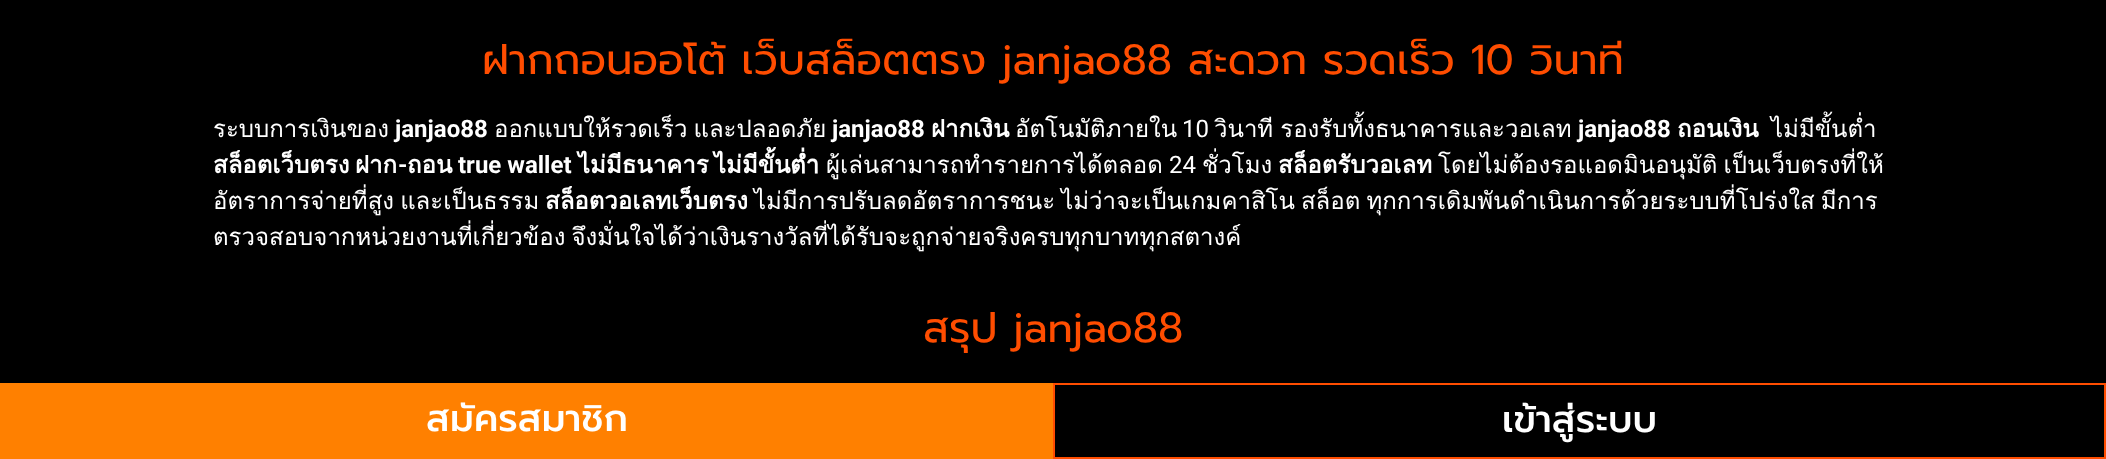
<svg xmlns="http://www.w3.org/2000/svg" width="2106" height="459">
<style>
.a{font:42px Prompt;fill:#ff4d00}
.b{font:24px Loma;fill:#fff}
.c{font:bold 24px Roboto;fill:#fff}
.d{font:bold 24px Loma;fill:#fff}
.e{font:24px Roboto;fill:#fff}
.f{font:500 37.5px Prompt;fill:#fff}
</style>
<rect width="100%" height="100%" fill="#000"/>
<path fill="#ff8000" d="M0 383h1053v76H0z"/>
<path fill="none" stroke="#ff4d00" stroke-width="2" d="M1054 384h1051v74H1054z"/>
<text class="a" x="482" y="74">ฝากถอนออโต้ เว็บสล็อตตรง janjao88 สะดวก รวดเร็ว 10 วินาที</text>
<text class="b" x="213" y="137">ระบบการเงินของ</text>
<text class="c" x="395" y="137">janjao88</text>
<text class="b" x="494" y="137" word-spacing="-2">ออกแบบให้รวดเร็ว และปลอดภัย</text>
<text class="c" x="832" y="137">janjao88</text>
<text class="d" x="931" y="137">ฝากเงิน</text>
<text class="b" x="1015" y="137">อัตโนมัติภายใน</text>
<text class="e" x="1182" y="137">10</text>
<text class="b" x="1214" y="137" word-spacing="-1">วินาที รองรับทั้งธนาคารและวอเลท</text>
<text class="c" x="1578" y="137">janjao88</text>
<text class="d" x="1677" y="137">ถอนเงิน</text>
<text class="b" x="1771" y="137">ไม่มีขั้นต่ำ</text>
<text class="d" x="213" y="173">สล็อตเว็บตรง</text>
<text class="d" x="355" y="173">ฝาก</text>
<text class="c" x="398" y="173">-</text>
<text class="d" x="407" y="173">ถอน</text>
<text class="c" x="458" y="173">true wallet</text>
<text class="d" x="578" y="173">ไม่มีธนาคาร</text>
<text class="d" x="714" y="173">ไม่มีขั้นต่ำ</text>
<text class="b" x="826" y="173">ผู้เล่นสามารถทำรายการได้ตลอด</text>
<text class="e" x="1169" y="173">24</text>
<text class="b" x="1202" y="173">ชั่วโมง</text>
<text class="d" x="1278" y="173">สล็อตรับวอเลท</text>
<text class="b" x="1438" y="173" word-spacing="-2">โดยไม่ต้องรอแอดมินอนุมัติ เป็นเว็บตรงที่ให้</text>
<text class="b" x="213" y="209" word-spacing="-2">อัตราการจ่ายที่สูง และเป็นธรรม</text>
<text class="d" x="545" y="209">สล็อตวอเลทเว็บตรง</text>
<text class="b" x="754" y="209" word-spacing="-2">ไม่มีการปรับลดอัตราการชนะ ไม่ว่าจะเป็นเกมคาสิโน สล็อต ทุกการเดิมพันดำเนินการด้วยระบบที่โปร่งใส มีการ</text>
<text class="b" x="213" y="245" word-spacing="-2">ตรวจสอบจากหน่วยงานที่เกี่ยวข้อง จึงมั่นใจได้ว่าเงินรางวัลที่ได้รับจะถูกจ่ายจริงครบทุกบาททุกสตางค์</text>
<text class="a" x="923" y="342">สรุป janjao88</text>
<text class="f" x="426" y="431">สมัครสมาชิก</text>
<text class="f" x="1502" y="432">เข้าสู่ระบบ</text>
</svg>
